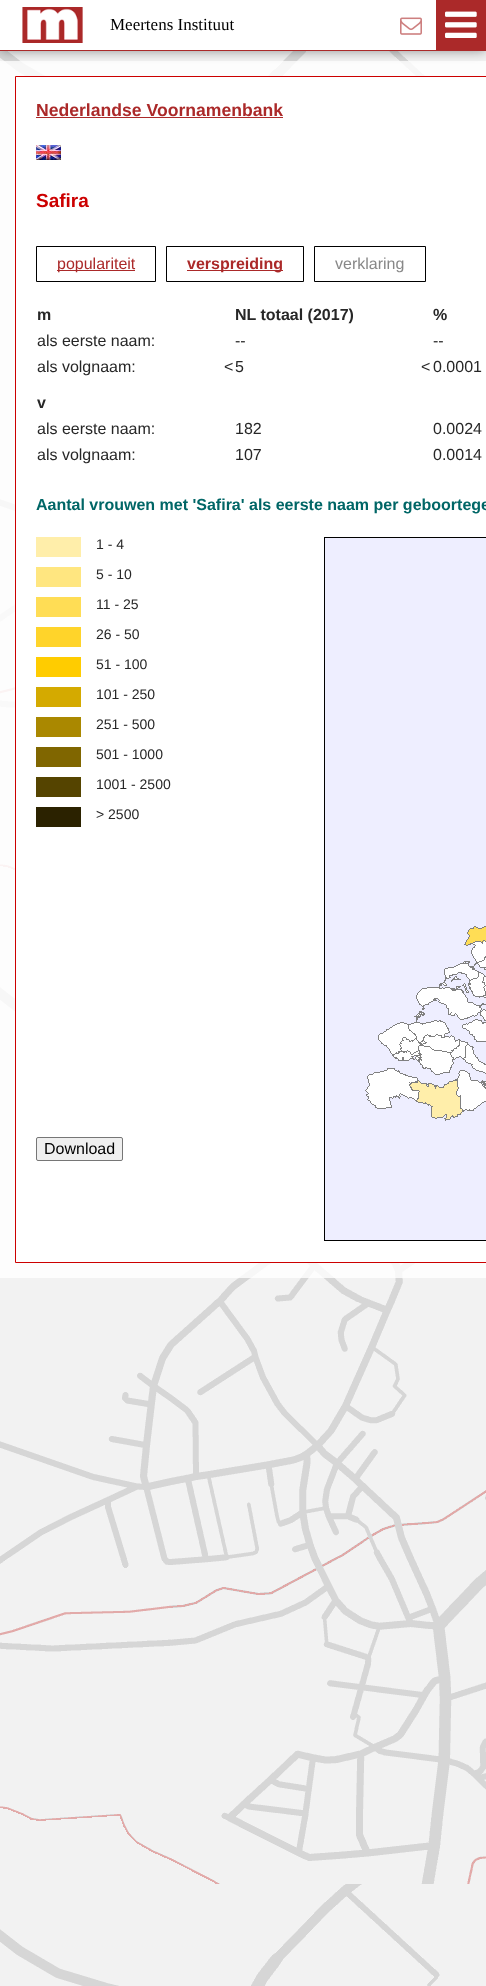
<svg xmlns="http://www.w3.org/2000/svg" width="486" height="1986">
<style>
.a{font:17px Liberation Serif;fill:#000}
.b{font:bold 17.6px Liberation Sans;fill:#ab2929}
.c{font:bold 19px Liberation Sans;fill:#c00}
.d{font:16px Liberation Sans;fill:#ab2929}
.e{font:bold 16px Liberation Sans;fill:#ab2929}
.f{font:16px Liberation Sans;fill:#888}
.g{font:bold 16px Liberation Sans;fill:#272727}
.h{font:16px Liberation Sans;fill:#272727}
.i{font:bold 16px Liberation Sans;fill:#066}
.j{font:14px Liberation Sans;fill:#272727}
.k{font:16px Liberation Sans;fill:#000}
</style>
<rect width="100%" height="100%" fill="#fff"/>
<image href="1.png" x="0" y="51" width="486" height="1935"/>
<path fill="#ffffffcc" d="M0 61h486v1217H0z"/>
<path fill="#00000066" filter="blur(6px)" d="M0 0h486v51H0z"/>
<path fill="#fff" d="M0 0h436v50H0z"/>
<path fill="#ab2929" d="M0 50h486v1H0z"/>
<path fill="#ab2929" d="M436 0h50v50H436z"/>
<image href="2.png" x="445" y="11" width="32" height="27"/>
<image href="3.png" x="22" y="7" width="61" height="36"/>
<image href="4.png" x="400" y="17" width="22" height="18"/>
<path fill="#ffffff4d" d="M0 548h486v394H0z"/>
<path fill="#fff" stroke="#c00" d="M15.5 76.5h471v1186H15.5z"/>
<path fill="#ab2929" d="M36 117h247v1H36z"/>
<image href="5.png" x="36" y="145" width="25" height="15"/>
<path fill="none" stroke="#000" d="M36.5 246.5h119v35H36.5z"/>
<path fill="#ab2929" d="M57 270h78v1H57z"/>
<path fill="none" stroke="#000" d="M166.5 246.5h137v35H166.5z"/>
<path fill="#ab2929" d="M187 270h96v1H187z"/>
<path fill="none" stroke="#000" d="M314.5 246.5h111v35H314.5z"/>
<path fill="#fea" d="M36 537h45v20H36z"/>
<path fill="#ffe680" d="M36 567h45v20H36z"/>
<path fill="#fd5" d="M36 597h45v20H36z"/>
<path fill="#ffd42a" d="M36 627h45v20H36z"/>
<path fill="#fc0" d="M36 657h45v20H36z"/>
<path fill="#d4aa00" d="M36 687h45v20H36z"/>
<path fill="#a80" d="M36 717h45v20H36z"/>
<path fill="#806600" d="M36 747h45v20H36z"/>
<path fill="#540" d="M36 777h45v20H36z"/>
<path fill="#2b2200" d="M36 807h45v20H36z"/>
<image href="6.png" x="324" y="537" width="162" height="704"/>
<rect fill="#efefef" stroke="#767676" x="36.5" y="1137.5" width="86" height="23" rx="1.5"/>
<text class="a" x="110" y="30">Meertens Instituut</text>
<text class="b" x="36" y="116">Nederlandse Voornamenbank</text>
<text class="c" x="36" y="207">Safira</text>
<text class="d" x="57" y="269">populariteit</text>
<text class="e" x="187" y="269">verspreiding</text>
<text class="f" x="335" y="269">verklaring</text>
<text class="g" x="37" y="320">m</text>
<text class="g" x="235" y="320">NL totaal (2017)</text>
<text class="g" x="433" y="320">%</text>
<text class="h" x="37" y="346">als eerste naam:</text>
<text class="h" x="235" y="346">--</text>
<text class="h" x="433" y="346">--</text>
<text class="h" x="37" y="372">als volgnaam:</text>
<text class="h" x="224" y="372">&lt;</text>
<text class="h" x="235" y="372">5</text>
<text class="h" x="421" y="372">&lt;</text>
<text class="h" x="433" y="372">0.0001</text>
<text class="g" x="37" y="408">v</text>
<text class="h" x="37" y="434">als eerste naam:</text>
<text class="h" x="235" y="434">182</text>
<text class="h" x="433" y="434">0.0024</text>
<text class="h" x="37" y="460">als volgnaam:</text>
<text class="h" x="235" y="460">107</text>
<text class="h" x="433" y="460">0.0014</text>
<text class="i" x="36" y="510">Aantal vrouwen met 'Safira' als eerste naam per geboortege</text>
<text class="j" x="96" y="549">1 - 4</text>
<text class="j" x="96" y="579">5 - 10</text>
<text class="j" x="96" y="609">11 - 25</text>
<text class="j" x="96" y="639">26 - 50</text>
<text class="j" x="96" y="669">51 - 100</text>
<text class="j" x="96" y="699">101 - 250</text>
<text class="j" x="96" y="729">251 - 500</text>
<text class="j" x="96" y="759">501 - 1000</text>
<text class="j" x="96" y="789">1001 - 2500</text>
<text class="j" x="96" y="819">&gt; 2500</text>
<text class="k" x="44" y="1154">Download</text>
</svg>
